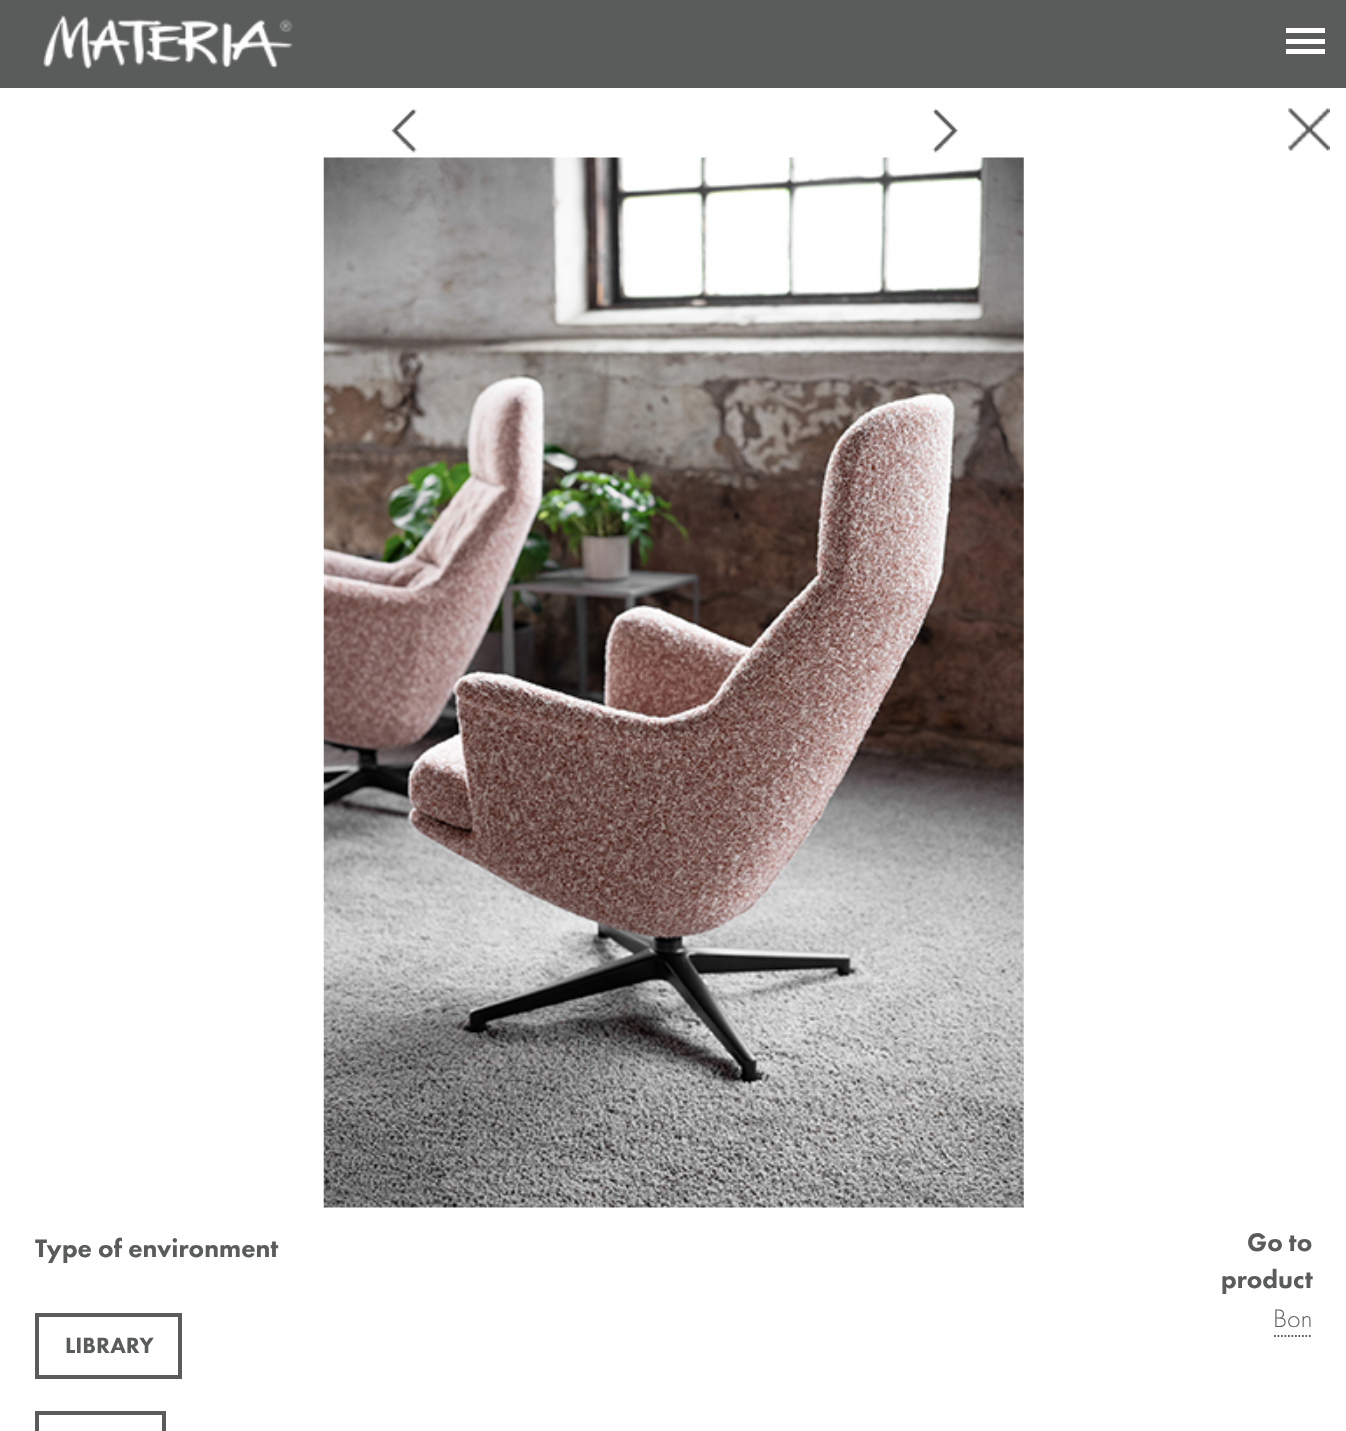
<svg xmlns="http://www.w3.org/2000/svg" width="1346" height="1431">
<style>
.a{font:900 26.25px Futura PT;fill:#5a5b5b}
.b{font:900 23px Futura PT;fill:#5a5b5b}
.c{font:300 26.25px Futura PT;fill:#5a5b5b}
</style>
<rect width="100%" height="100%" fill="#fff"/>
<path fill="#5a5b5b" d="M0 0h1346v88H0z"/>
<path fill="#fff" d="M1286 28h39v5H1286z"/>
<path fill="#fff" d="M1286 39h39v5H1286z"/>
<path fill="#fff" d="M1286 49h39v5H1286z"/>
<image href="1.png" x="43" y="15" width="250" height="54"/>
<image href="2.png" x="391" y="108" width="26" height="45"/>
<image href="3.png" x="932" y="108" width="26" height="45"/>
<image href="4.png" x="1288" y="108" width="42" height="43"/>
<image href="5.png" x="323" y="157" width="701" height="1051"/>
<path fill="none" stroke="#5a5b5b" stroke-width="4" d="M37 1315h143v62H37z"/>
<path fill="none" stroke="#5a5b5b" stroke-width="4" d="M37 1413h127v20H37z"/>
<path fill="none" stroke="#5a5b5b" stroke-width="1.8" stroke-dasharray="1.75 1.75" d="M1274 1336h38.5"/>
<text class="a" x="35" y="1257">Type of environment</text>
<text class="b" x="65" y="1353">LIBRARY</text>
<text class="a" x="1247" y="1251">Go to</text>
<text class="a" x="1221" y="1288">product</text>
<text class="c" x="1273" y="1327">Bon</text>
</svg>
